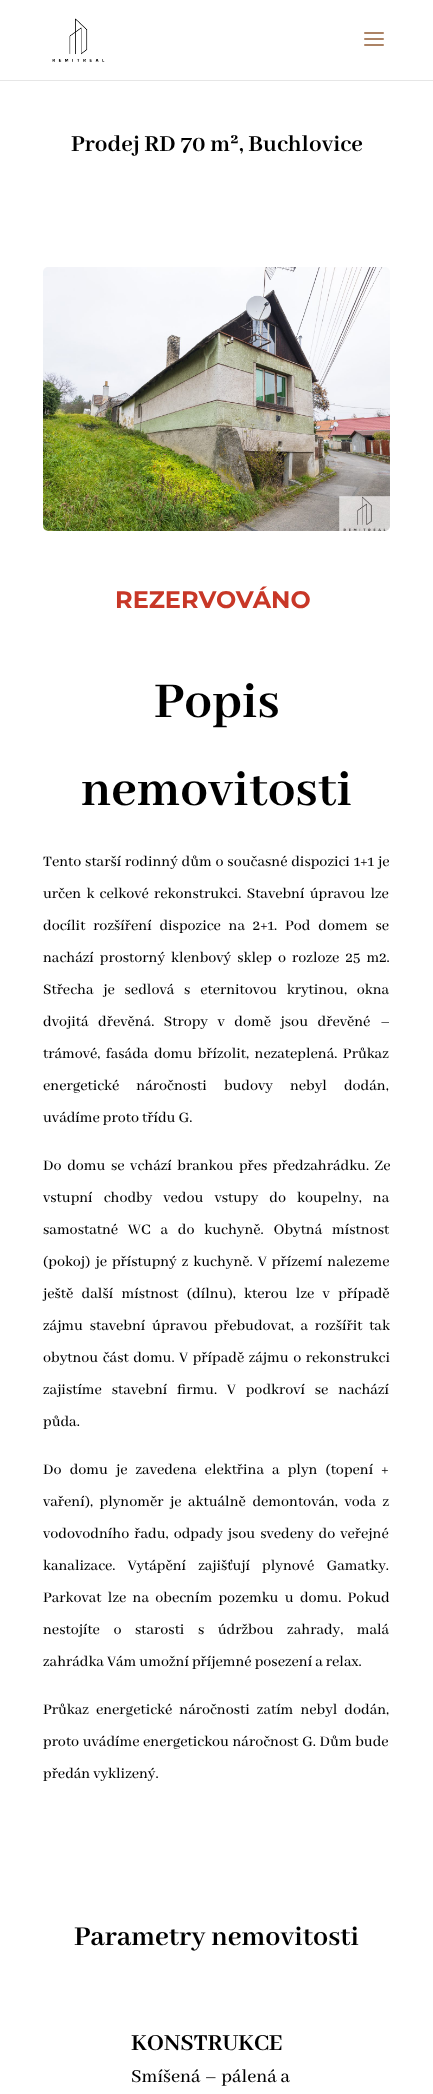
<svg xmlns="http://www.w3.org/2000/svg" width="433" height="2094">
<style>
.a{font:bold 25px Abhaya Libre;fill:#000}
.b{font:bold 24px Montserrat;fill:#c83727}
.c{font:bold 55px Abhaya Libre;fill:#000}
.d{font:500 16px Abhaya Libre Medium;fill:#000}
.e{font:bold 30px Abhaya Libre;fill:#000}
.f{font:500 20px Abhaya Libre Medium;fill:#000}
</style>
<rect width="100%" height="100%" fill="#fff"/>
<path fill="#e6e6e6" d="M0 80h433v1H0z"/>
<image href="1.png" x="52" y="18" width="53" height="44"/>
<image href="2.png" x="364" y="32" width="20" height="14"/>
<image href="3.png" x="43" y="267" width="347" height="264"/>
<text class="a" x="71" y="151">Prodej RD 70 m², Buchlovice</text>
<text class="b" x="115" y="608">REZERVOVÁNO</text>
<text class="c" x="154" y="717">Popis</text>
<text class="c" x="81" y="805">nemovitosti</text>
<text class="d" x="43" y="866" word-spacing="0.75">Tento starší rodinný dům o současné dispozici 1+1 je</text>
<text class="d" x="43" y="898" word-spacing="2.25">určen k celkové rekonstrukci. Stavební úpravou lze</text>
<text class="d" x="43" y="930" word-spacing="4.75">docílit rozšíření dispozice na 2+1. Pod domem se</text>
<text class="d" x="43" y="962" word-spacing="3">nachází prostorný klenbový sklep o rozloze 25 m2.</text>
<text class="d" x="43" y="994" word-spacing="6.75">Střecha je sedlová s eternitovou krytinou, okna</text>
<text class="d" x="43" y="1026" word-spacing="6.5">dvojitá dřevěná. Stropy v domě jsou dřevěné –</text>
<text class="d" x="43" y="1058" word-spacing="2.5">trámové, fasáda domu břízolit, nezateplená. Průkaz</text>
<text class="d" x="43" y="1090" word-spacing="14">energetické náročnosti budovy nebyl dodán,</text>
<text class="d" x="43" y="1122">uvádíme proto třídu G.</text>
<text class="d" x="43" y="1170" word-spacing="2.5">Do domu se vchází brankou přes předzahrádku. Ze</text>
<text class="d" x="43" y="1202" word-spacing="8">vstupní chodby vedou vstupy do koupelny, na</text>
<text class="d" x="43" y="1234" word-spacing="6.75">samostatné WC a do kuchyně. Obytná místnost</text>
<text class="d" x="43" y="1266" word-spacing="2">(pokoj) je přístupný z kuchyně. V přízemí nalezeme</text>
<text class="d" x="43" y="1298" word-spacing="5.25">ještě další místnost (dílnu), kterou lze v případě</text>
<text class="d" x="43" y="1330" word-spacing="3.75">zájmu stavební úpravou přebudovat, a rozšířit tak</text>
<text class="d" x="43" y="1362" word-spacing="1.5">obytnou část domu. V případě zájmu o rekonstrukci</text>
<text class="d" x="43" y="1394" word-spacing="6.75">zajistíme stavební firmu. V podkroví se nachází</text>
<text class="d" x="43" y="1426">půda.</text>
<text class="d" x="43" y="1474" word-spacing="5">Do domu je zavedena elektřina a plyn (topení +</text>
<text class="d" x="43" y="1506" word-spacing="3.5">vaření), plynoměr je aktuálně demontován, voda z</text>
<text class="d" x="43" y="1538" word-spacing="2">vodovodního řadu, odpady jsou svedeny do veřejné</text>
<text class="d" x="43" y="1570" word-spacing="9">kanalizace. Vytápění zajišťují plynové Gamatky.</text>
<text class="d" x="43" y="1602" word-spacing="3.25">Parkovat lze na obecním pozemku u domu. Pokud</text>
<text class="d" x="43" y="1634" word-spacing="10.5">nestojíte o starosti s údržbou zahrady, malá</text>
<text class="d" x="43" y="1666">zahrádka Vám umožní příjemné posezení a relax.</text>
<text class="d" x="43" y="1714" word-spacing="4">Průkaz energetické náročnosti zatím nebyl dodán,</text>
<text class="d" x="43" y="1746" word-spacing="0.5">proto uvádíme energetickou náročnost G. Dům bude</text>
<text class="d" x="43" y="1778">předán vyklizený.</text>
<text class="e" x="74" y="1945">Parametry nemovitosti</text>
<text class="a" x="131" y="2050">KONSTRUKCE</text>
<text class="f" x="131" y="2082">Smíšená – pálená a</text>
</svg>
